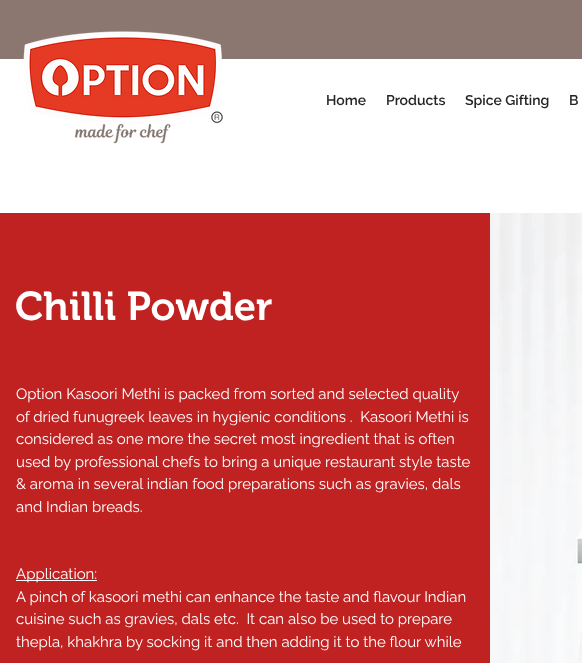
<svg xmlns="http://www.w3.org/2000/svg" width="582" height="663">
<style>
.a{font:600 14px Raleway;fill:#252525}
.b{font:600 40px 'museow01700';fill:#fff}
.c{font:15px Raleway;fill:#fff}
</style>
<rect width="100%" height="100%" fill="#fff"/>
<path fill="#8b776f" d="M0 0h582v59H0z"/>
<image href="1.png" x="23" y="31" width="200" height="113"/>
<path fill="#c02222" d="M0 213h490v450H0z"/>
<path fill="#fff" d="M16 580h81v1H16z"/>
<image href="2.png" x="490" y="213" width="92" height="450"/>
<text class="a" x="326" y="105">Home</text>
<text class="a" x="386" y="105">Products</text>
<text class="a" x="465" y="105">Spice Gifting</text>
<text class="a" x="569" y="105">B</text>
<text class="b" x="15" y="320">Chilli Powder</text>
<text class="c" x="16" y="399">Option Kasoori Methi is packed from sorted and selected quality</text>
<text class="c" xml:space="preserve" x="16" y="422">of dried funugreek leaves in hygienic conditions .  Kasoori Methi is</text>
<text class="c" x="16" y="444">considered as one more the secret most ingredient that is often</text>
<text class="c" x="16" y="467">used by professional chefs to bring a unique restaurant style taste</text>
<text class="c" x="16" y="489">&amp; aroma in several indian food preparations such as gravies, dals</text>
<text class="c" x="16" y="512">and Indian breads.</text>
<text class="c" x="16" y="579">Application:</text>
<text class="c" x="16" y="602">A pinch of kasoori methi can enhance the taste and flavour Indian</text>
<text class="c" xml:space="preserve" x="16" y="624">cuisine such as gravies, dals etc.  It can also be used to prepare</text>
<text class="c" x="16" y="647">thepla, khakhra by socking it and then adding it to the flour while</text>
</svg>
